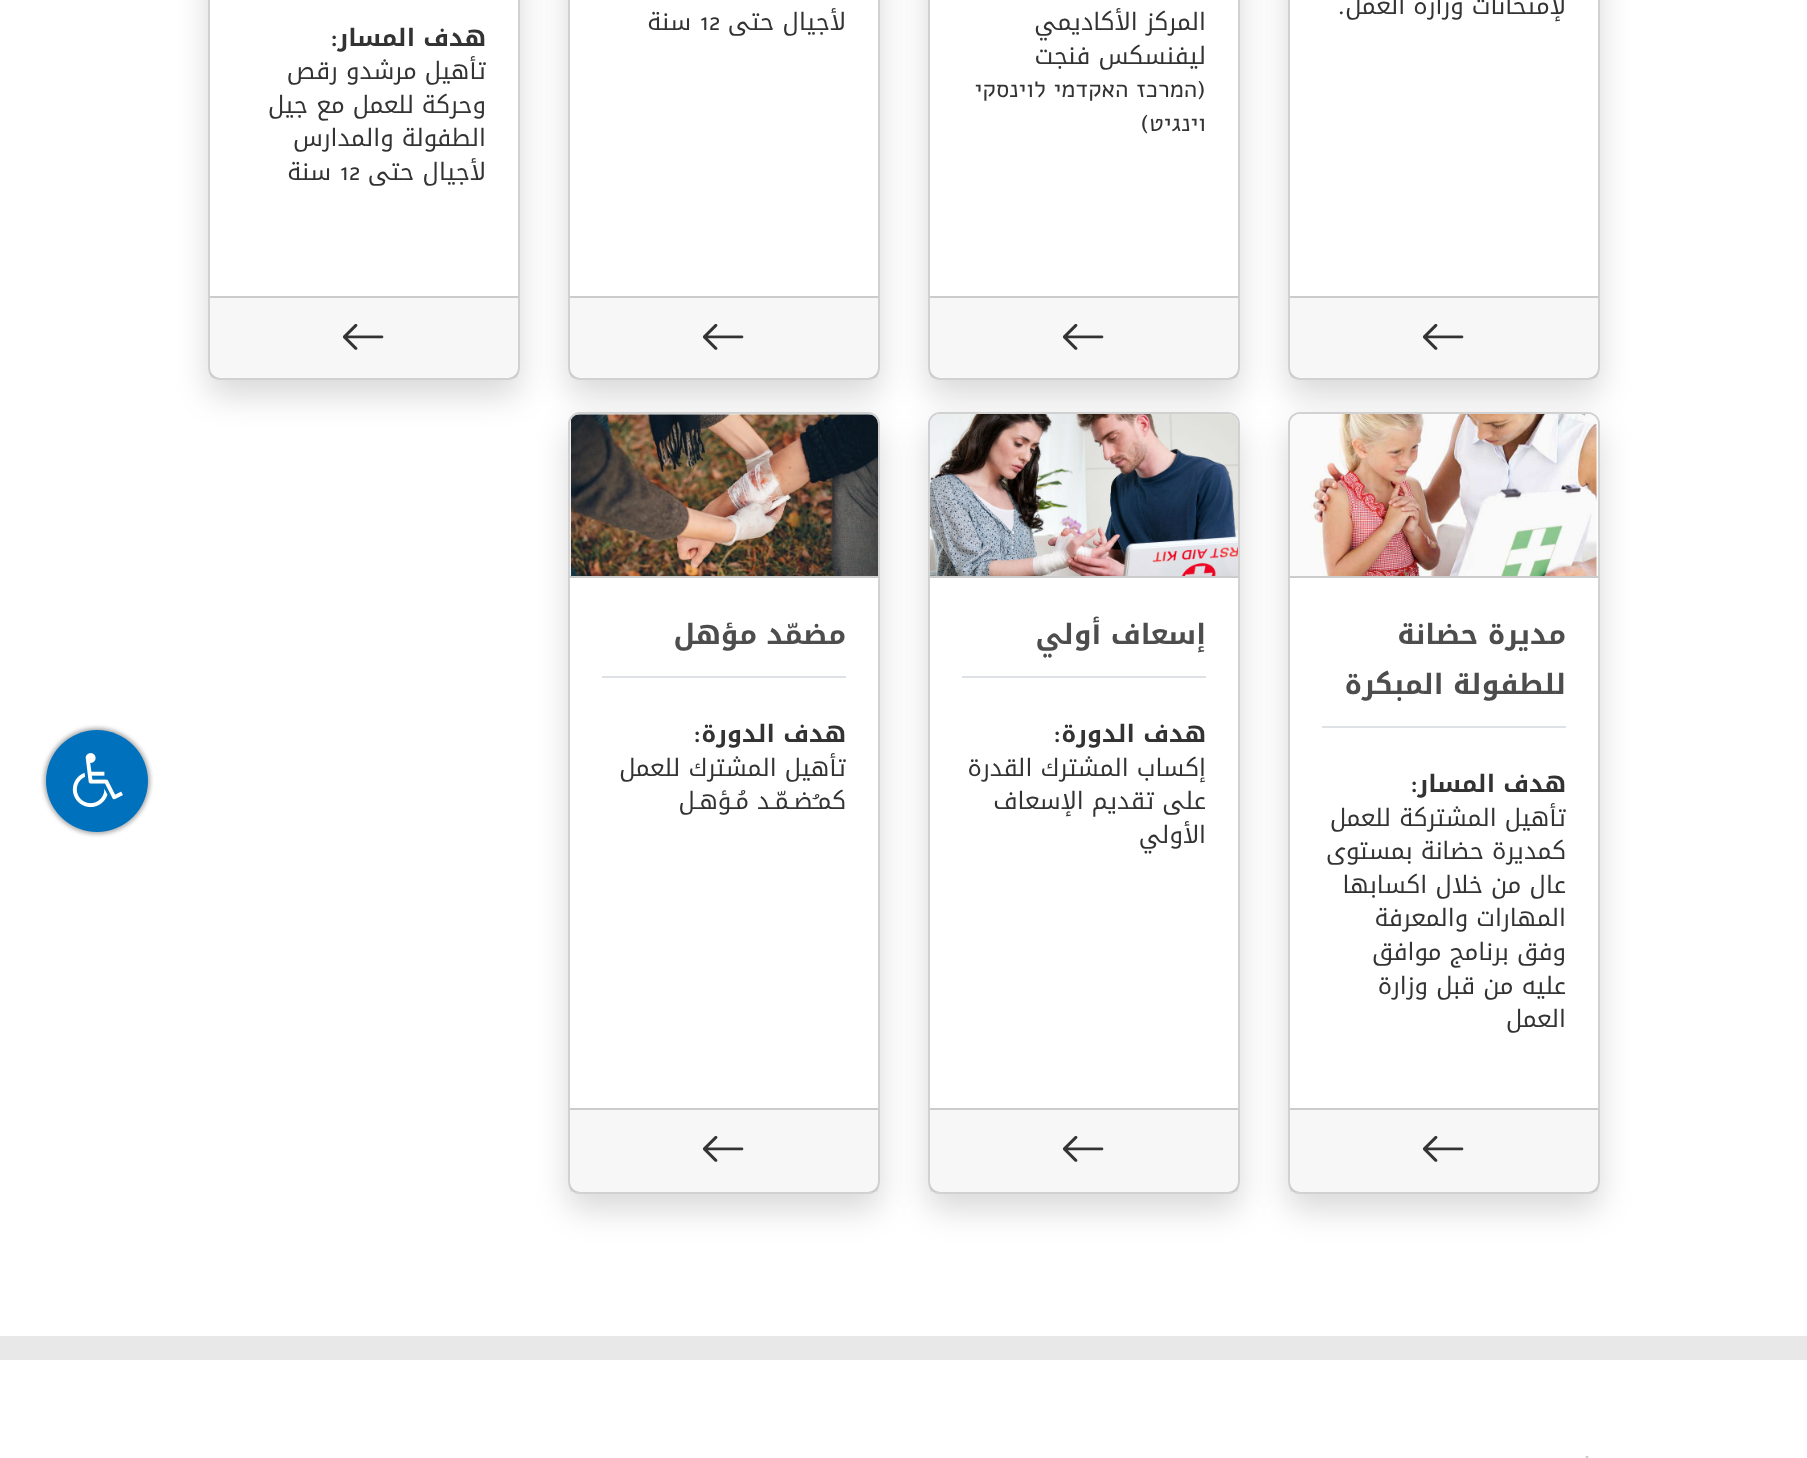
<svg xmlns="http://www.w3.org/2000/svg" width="1807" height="1458">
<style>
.a{font:24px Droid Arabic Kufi;direction:rtl;fill:#333}
.b{font:24px Alef;direction:rtl;fill:#333}
.c{font:24px Alef;fill:#333}
.d{font:bold 24px Droid Arabic Kufi;direction:rtl;fill:#333}
.e{font:bold 24px Alef;direction:rtl;fill:#333}
.f{font:bold 28px Droid Arabic Kufi;direction:rtl;fill:#4d4d4d}
</style>
<rect width="100%" height="100%" fill="#fff"/>
<rect fill="#00000026" filter="blur(16px)" x="1288" y="-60" width="312" height="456" rx="12"/>
<rect fill="#fff" x="1288" y="-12" width="312" height="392" rx="12"/>
<rect fill="none" stroke="#0000002e" stroke-width="2" x="1289" y="-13" width="310" height="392" rx="11"/>
<path fill="#00000008" d="M1290 298h308v80H1290z"/>
<path fill="#ccc" d="M1290 296h308v2H1290z"/>
<image href="1.png" x="1422" y="324" width="42" height="26"/>
<rect fill="#00000026" filter="blur(16px)" x="928" y="-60" width="312" height="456" rx="12"/>
<rect fill="#fff" x="928" y="-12" width="312" height="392" rx="12"/>
<rect fill="none" stroke="#0000002e" stroke-width="2" x="929" y="-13" width="310" height="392" rx="11"/>
<path fill="#00000008" d="M930 298h308v80H930z"/>
<path fill="#ccc" d="M930 296h308v2H930z"/>
<image href="1.png" x="1062" y="324" width="42" height="26"/>
<rect fill="#00000026" filter="blur(16px)" x="568" y="-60" width="312" height="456" rx="12"/>
<rect fill="#fff" x="568" y="-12" width="312" height="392" rx="12"/>
<rect fill="none" stroke="#0000002e" stroke-width="2" x="569" y="-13" width="310" height="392" rx="11"/>
<path fill="#00000008" d="M570 298h308v80H570z"/>
<path fill="#ccc" d="M570 296h308v2H570z"/>
<image href="1.png" x="702" y="324" width="42" height="26"/>
<rect fill="#00000026" filter="blur(16px)" x="208" y="-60" width="312" height="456" rx="12"/>
<rect fill="#fff" x="208" y="-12" width="312" height="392" rx="12"/>
<rect fill="none" stroke="#0000002e" stroke-width="2" x="209" y="-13" width="310" height="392" rx="11"/>
<path fill="#00000008" d="M210 298h308v80H210z"/>
<path fill="#ccc" d="M210 296h308v2H210z"/>
<image href="1.png" x="342" y="324" width="42" height="26"/>
<rect fill="#00000026" filter="blur(16px)" x="1288" y="428" width="312" height="782" rx="12"/>
<rect fill="#fff" x="1288" y="412" width="312" height="782" rx="12"/>
<rect fill="none" stroke="#0000002e" stroke-width="2" x="1289" y="413" width="310" height="780" rx="11"/>
<path fill="#ccc" d="M1290 576h308v2H1290z"/>
<image href="2.png" x="1290" y="414" width="308" height="10"/>
<image href="3.png" x="1290" y="414" width="308" height="162"/>
<path fill="#dee2e6" d="M1322 726h244v2H1322z"/>
<path fill="#00000008" d="M1290 1110h308v82H1290z"/>
<path fill="#ccc" d="M1290 1108h308v2H1290z"/>
<image href="1.png" x="1422" y="1136" width="42" height="26"/>
<rect fill="#00000026" filter="blur(16px)" x="928" y="428" width="312" height="782" rx="12"/>
<rect fill="#fff" x="928" y="412" width="312" height="782" rx="12"/>
<rect fill="none" stroke="#0000002e" stroke-width="2" x="929" y="413" width="310" height="780" rx="11"/>
<path fill="#ccc" d="M930 576h308v2H930z"/>
<image href="4.png" x="930" y="414" width="308" height="10"/>
<image href="5.png" x="930" y="414" width="308" height="162"/>
<path fill="#dee2e6" d="M962 676h244v2H962z"/>
<path fill="#00000008" d="M930 1110h308v82H930z"/>
<path fill="#ccc" d="M930 1108h308v2H930z"/>
<image href="1.png" x="1062" y="1136" width="42" height="26"/>
<rect fill="#00000026" filter="blur(16px)" x="568" y="428" width="312" height="782" rx="12"/>
<rect fill="#fff" x="568" y="412" width="312" height="782" rx="12"/>
<rect fill="none" stroke="#0000002e" stroke-width="2" x="569" y="413" width="310" height="780" rx="11"/>
<path fill="#ccc" d="M570 576h308v2H570z"/>
<image href="4.png" x="570" y="414" width="308" height="10"/>
<image href="6.png" x="570" y="414" width="308" height="162"/>
<path fill="#dee2e6" d="M602 676h244v2H602z"/>
<path fill="#00000008" d="M570 1110h308v82H570z"/>
<path fill="#ccc" d="M570 1108h308v2H570z"/>
<image href="1.png" x="702" y="1136" width="42" height="26"/>
<path fill="#e8e8e8" d="M0 1336h1807v24H0z"/>
<image href="7.png" x="1585" y="1456" width="4" height="2"/>
<rect fill="#aaa" filter="blur(2px)" x="44" y="728" width="106" height="106" rx="53"/>
<circle fill="#0071bc" cx="97" cy="781" r="51"/>
<image href="8.png" x="72" y="753" width="51" height="55"/>
<text class="a" x="1566" y="14">لإمتحانات وزارة العمل</text>
<text class="b" x="1345" y="14">.</text>
<text class="a" x="1206" y="30">المركز الأكاديمي</text>
<text class="a" x="1206" y="64">ليفنسكس فنجت</text>
<text class="b" x="1206" y="97" word-spacing="1">(המרכז האקדמי לוינסקי</text>
<text class="b" x="1206" y="131">וינגיט)</text>
<text class="a" x="846" y="30">لأجيال حتى</text>
<text class="c" x="700" y="30">12</text>
<text class="a" x="691" y="30">سنة</text>
<text class="d" x="486" y="46">هدف المسار</text>
<text class="e" x="338" y="46">:</text>
<text class="a" x="486" y="79">تأهيل مرشدو رقص</text>
<text class="a" x="486" y="113">وحركة</text>
<text class="a" x="414" y="113">للعمل مع جيل</text>
<text class="a" x="486" y="146">الطفولة والمدارس</text>
<text class="a" x="486" y="180">لأجيال حتى</text>
<text class="c" x="340" y="180">12</text>
<text class="a" x="331" y="180">سنة</text>
<text class="f" x="1566" y="644">مديرة حضانة</text>
<text class="f" x="1566" y="694">للطفولة المبكرة</text>
<text class="d" x="1566" y="792">هدف المسار</text>
<text class="e" x="1418" y="792">:</text>
<text class="a" x="1566" y="826">تأهيل المشتركة للعمل</text>
<text class="a" x="1566" y="859">كمديرة حضانة بمستوى</text>
<text class="a" x="1566" y="893">عال من خلال اكسابها</text>
<text class="a" x="1566" y="926">المهارات والمعرفة</text>
<text class="a" x="1566" y="960">وفق برنامج موافق</text>
<text class="a" x="1566" y="994">عليه من قبل وزارة</text>
<text class="a" x="1566" y="1027">العمل</text>
<text class="f" x="1206" y="644">إسعاف أولي</text>
<text class="d" x="1206" y="742">هدف الدورة</text>
<text class="e" x="1061" y="742">:</text>
<text class="a" x="1206" y="776">إكساب المشترك القدرة</text>
<text class="a" x="1206" y="809">على تقديم الإسعاف</text>
<text class="a" x="1206" y="843">الأولي</text>
<text class="f" x="846" y="644">مضمّد مؤهل</text>
<text class="d" x="846" y="742">هدف الدورة</text>
<text class="e" x="701" y="742">:</text>
<text class="a" x="846" y="776">تأهيل المشترك للعمل</text>
<text class="a" x="846" y="809">كمـُضـمّـد مُـؤهـل</text>
</svg>
